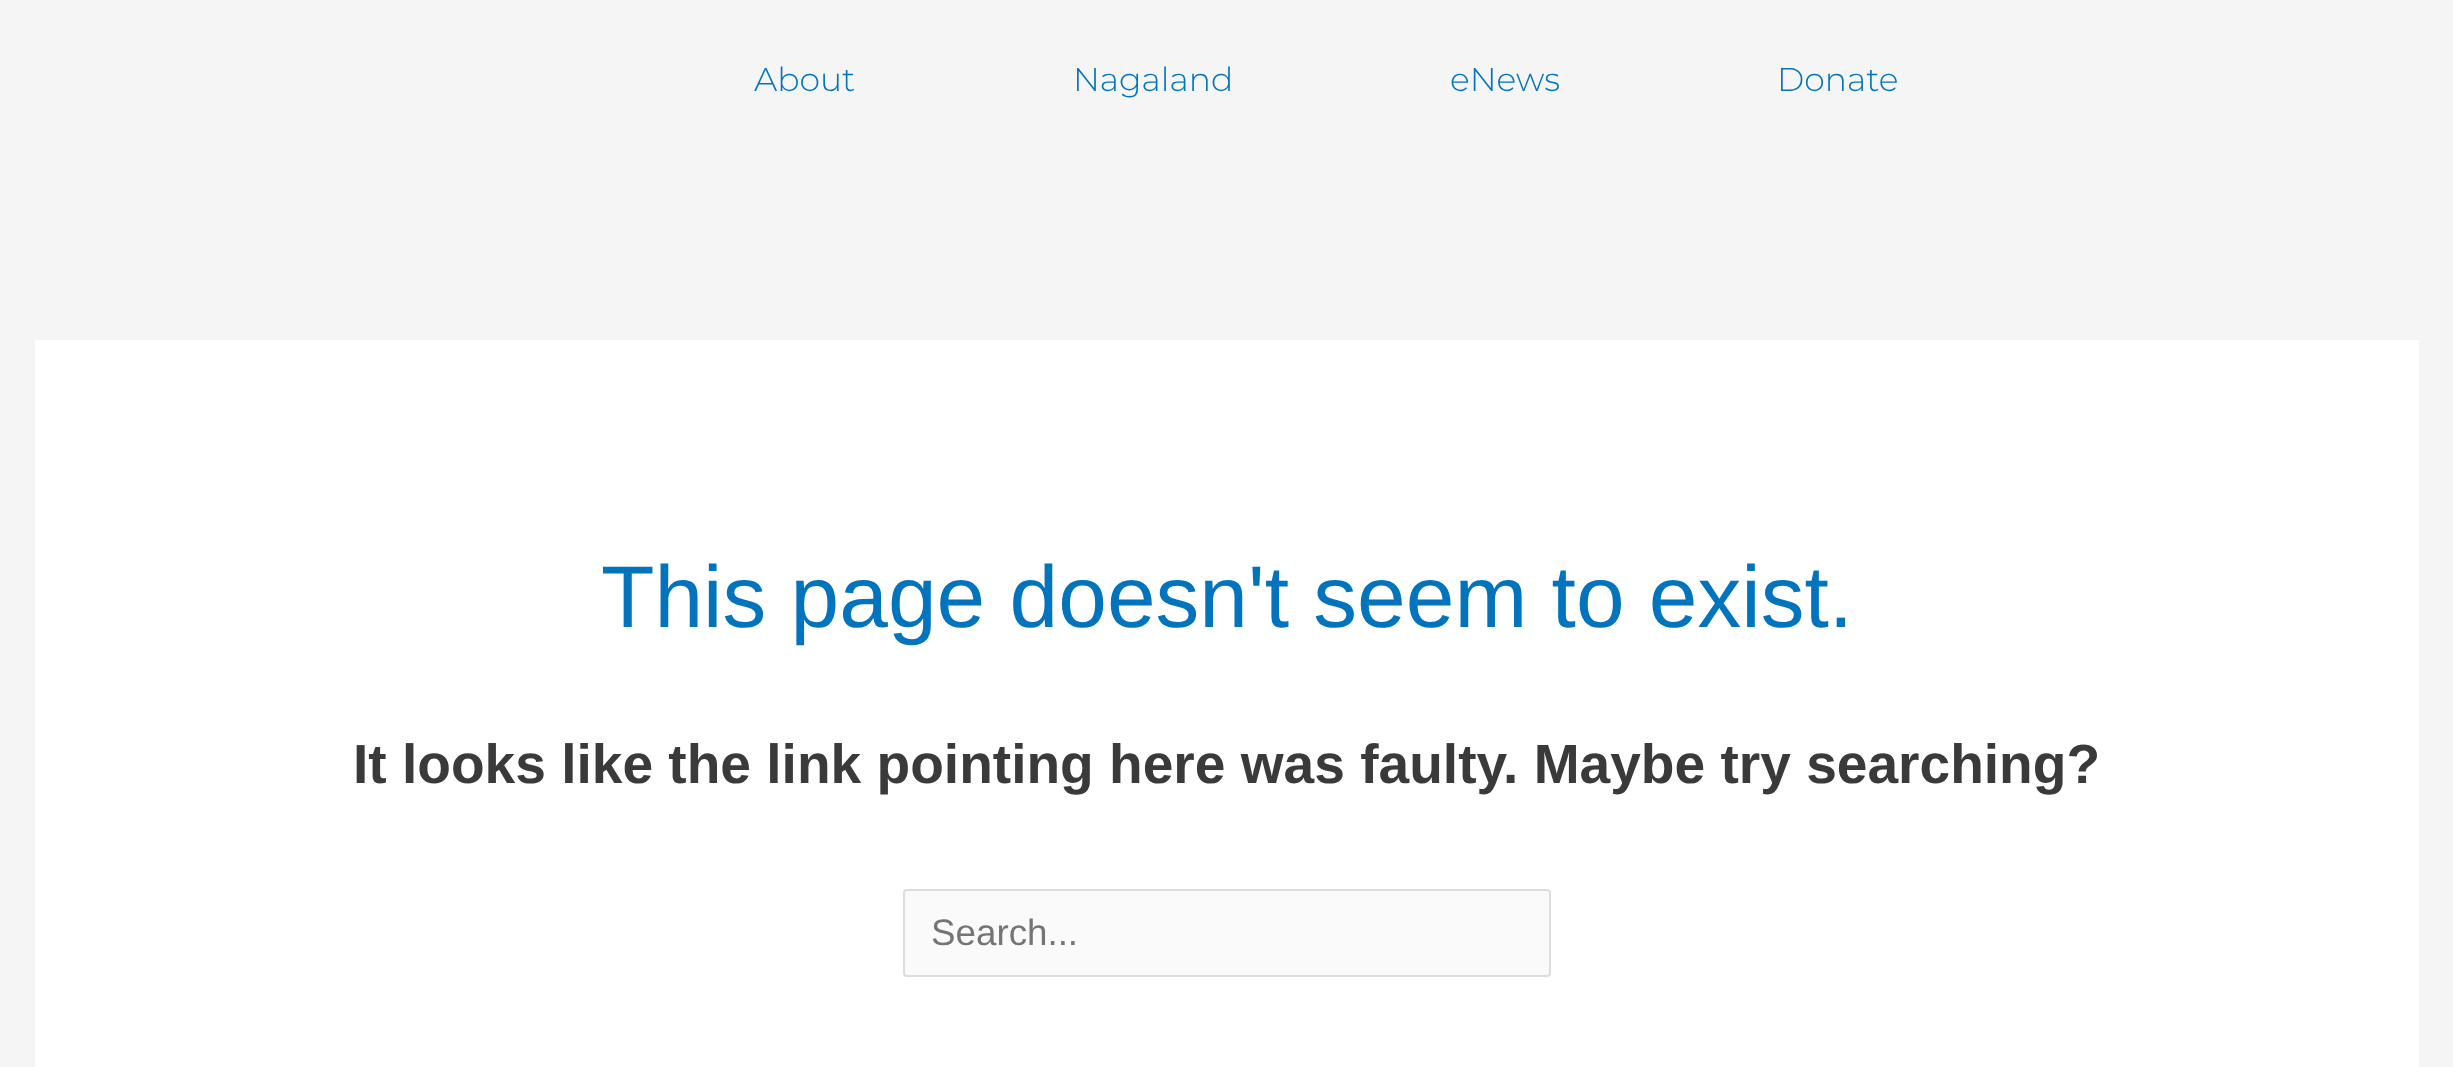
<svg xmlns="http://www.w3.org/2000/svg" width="2453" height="1067">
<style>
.a{font:300 33px Montserrat;fill:#0274be}
.b{font:87.5px Liberation Sans;fill:#0274be}
.c{font:bold 55.1px Liberation Sans;fill:#3a3a3a}
.d{font:36.75px Liberation Sans;fill:#757575}
</style>
<rect width="100%" height="100%" fill="#f5f5f5"/>
<path fill="#fff" d="M35 340h2384v727H35z"/>
<rect fill="#fafafa" stroke="#ddd" stroke-width="2" x="904" y="890" width="646" height="86" rx="3"/>
<text class="a" x="754" y="91">About</text>
<text class="a" x="1073" y="91">Nagaland</text>
<text class="a" x="1450" y="91">eNews</text>
<text class="a" x="1777" y="91">Donate</text>
<text class="b" x="601" y="627">This page doesn't seem to exist.</text>
<text class="c" x="353" y="783">It looks like the link pointing here was faulty. Maybe try searching?</text>
<text class="d" x="931" y="945">Search...</text>
</svg>
